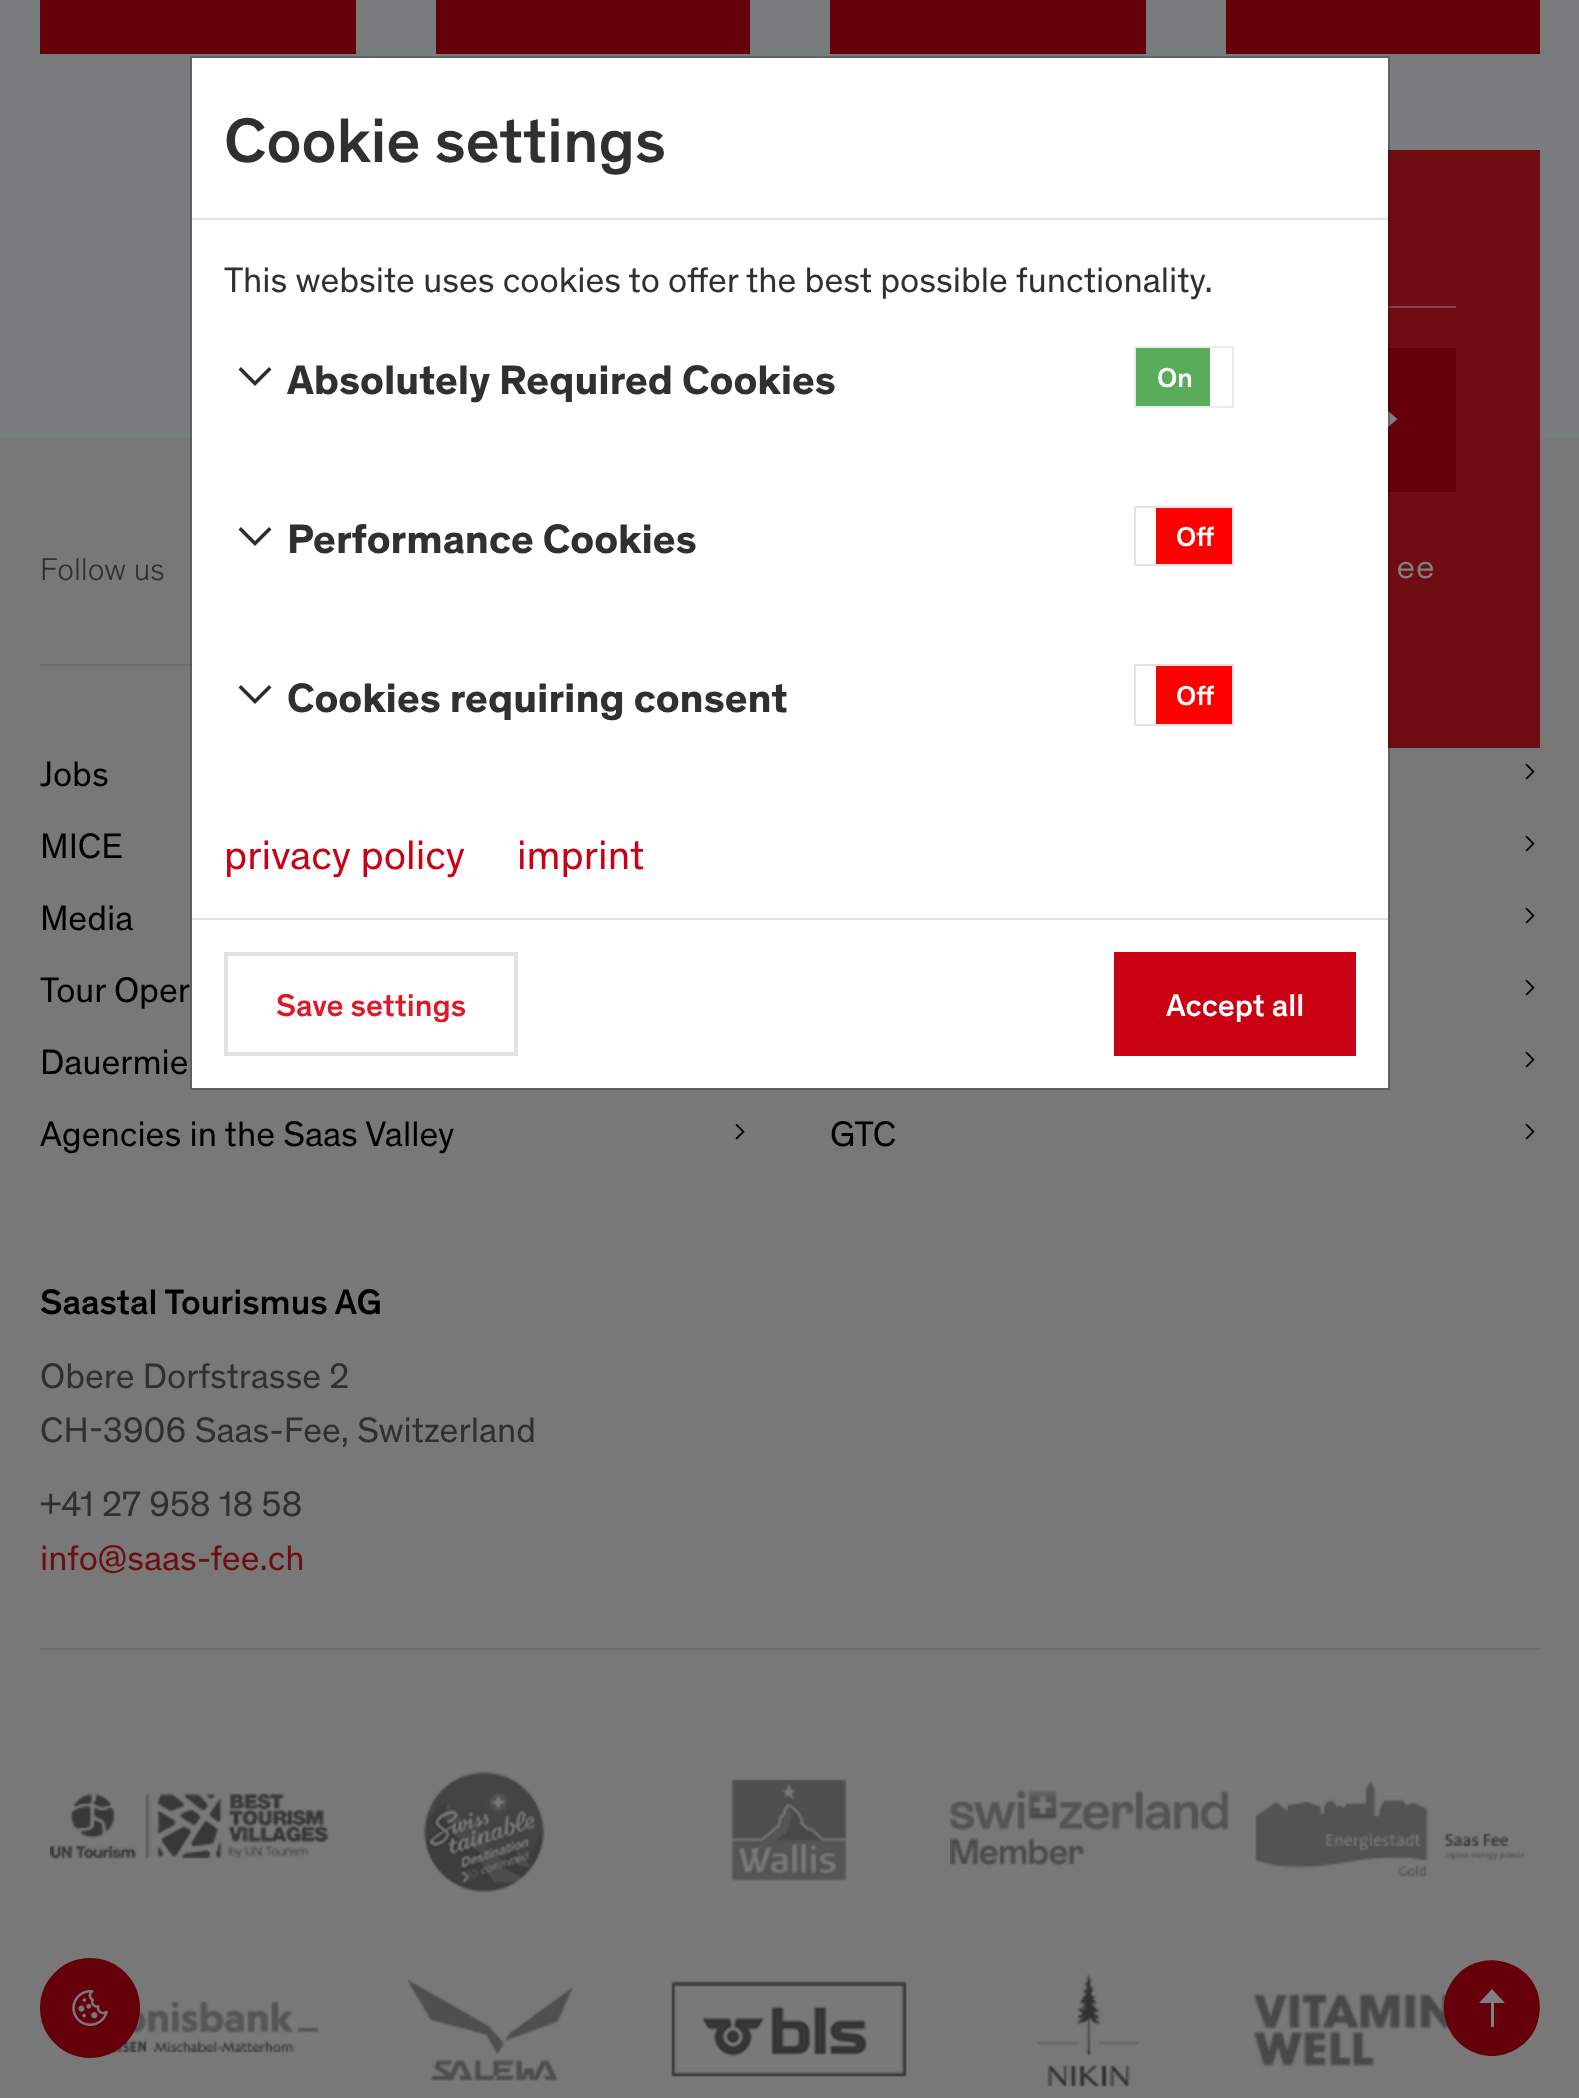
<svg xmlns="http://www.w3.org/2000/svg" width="1579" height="2098">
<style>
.a{font:500 64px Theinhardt;fill:#303030}
.b{font:36px Theinhardt;fill:#303030}
.c{font:bold 42px Theinhardt;fill:#303030}
.d{font:500 28px Theinhardt;fill:#fff}
.e{font:42px Theinhardt;fill:#ca0013}
.f{font:500 32px Theinhardt;fill:#de1925}
.g{font:500 32px Theinhardt;fill:#fff}
.h{font:300 32px Theinhardt;fill:#303030}
.i{font:36px Theinhardt;fill:#000}
.j{font:500 36px Theinhardt;fill:#000}
.k{font:36px Theinhardt;fill:#6f0d13}
.l{font:32px Space Mono;fill:#808080}
</style>
<rect width="100%" height="100%" fill="#787c7d"/>
<path fill="#787879" d="M0 438h1579v1660H0z"/>
<path fill="#6f0d13" d="M1388 150h152v598H1388z"/>
<path fill="#65000a" d="M1388 348h68v144H1388z"/>
<path fill="#808080" d="M1397.5 419l-10.5-9v8h-25.5v2h25.5v8z"/>
<path fill="#fff" d="M192 58h1196v1030H192z"/>
<path fill="#6c6c6d" d="M40 664h152v2H40z"/>
<path fill="#784649" d="M1388 306h68v2H1388z"/>
<path fill="none" stroke="#00000033" stroke-width="2" d="M191 57h1198v1032H191z"/>
<path fill="#dee2e6" d="M192 218h1196v2H192z"/>
<path fill="#2b2b2b" d="M238.5 369.5l2.5-2.5l14 14l14-14l2.5 2.5l-16.5 16.5z"/>
<path fill="none" stroke="#ececec" stroke-width="2" d="M1135 347h98v60H1135z"/>
<path fill="#59ac59" d="M1136 348h74v58H1136z"/>
<path fill="#2b2b2b" d="M238.5 529.5l2.5-2.5l14 14l14-14l2.5 2.5l-16.5 16.5z"/>
<path fill="none" stroke="#e2e2e2" stroke-width="2" d="M1135 507h98v58H1135z"/>
<path fill="#f00" d="M1156 508h76v56H1156z"/>
<path fill="#2b2b2b" d="M238.5 687.5l2.5-2.5l14 14l14-14l2.5 2.5l-16.5 16.5z"/>
<path fill="none" stroke="#e2e2e2" stroke-width="2" d="M1135 665h98v60H1135z"/>
<path fill="#f00" d="M1156 666h76v58H1156z"/>
<path fill="#dee2e6" d="M192 918h1196v2H192z"/>
<path fill="none" stroke="#e2e2e2" stroke-width="4" d="M226 954h290v100H226z"/>
<path fill="#ca0013" d="M1114 952h242v104H1114z"/>
<path fill="#65000a" d="M40 0h316v54H40z"/>
<path fill="#65000a" d="M436 0h314v54H436z"/>
<path fill="#65000a" d="M830 0h316v54H830z"/>
<path fill="#65000a" d="M1226 0h314v54H1226z"/>
<image href="1.png" x="735" y="1123" width="10" height="17"/>
<image href="1.png" x="1525" y="763" width="10" height="17"/>
<image href="1.png" x="1525" y="835" width="10" height="17"/>
<image href="1.png" x="1525" y="907" width="10" height="17"/>
<image href="1.png" x="1525" y="979" width="10" height="17"/>
<image href="1.png" x="1525" y="1051" width="10" height="17"/>
<image href="1.png" x="1525" y="1123" width="10" height="17"/>
<path fill="#6c6c6d" d="M40 1648h1500v2H40z"/>
<image href="2.png" x="50" y="1793" width="279" height="66"/>
<image href="3.png" x="423" y="1771" width="122" height="122"/>
<image href="4.png" x="731" y="1779" width="116" height="102"/>
<image href="5.png" x="950" y="1789" width="279" height="78"/>
<image href="6.png" x="1255" y="1781" width="270" height="96"/>
<image href="7.png" x="111" y="2001" width="208" height="52"/>
<image href="8.png" x="407" y="1979" width="166" height="102"/>
<image href="9.png" x="671" y="1981" width="236" height="96"/>
<image href="10.png" x="1037" y="1974" width="102" height="113"/>
<image href="11.png" x="1253" y="1993" width="197" height="74"/>
<circle fill="#808080" cx="1490" cy="2008" r="40"/>
<path fill="#65000a" d="M1444 2008c0 27 23 49 50 48c16-1 31-10 39-23c6-10 8-23 6-35c-8-42-66-52-88-15c-5 8-7 16-7 25zm61-5h-11v24h-3v-24h-12l13-14z"/>
<circle fill="#65000a" stroke="#65000a" stroke-width="4" cx="90" cy="2008" r="48"/>
<image href="12.png" x="72" y="1990" width="36" height="36"/>
<text class="a" x="224" y="162">Cookie settings</text>
<text class="b" x="224" y="292">This website uses cookies to offer the best possible functionality.</text>
<text class="c" x="287" y="394">Absolutely Required Cookies</text>
<text class="d" x="1157" y="387">On</text>
<text class="c" x="287" y="553">Performance Cookies</text>
<text class="d" x="1176" y="546">Off</text>
<text class="c" x="287" y="712">Cookies requiring consent</text>
<text class="d" x="1176" y="705">Off</text>
<text class="e" x="224" y="869">privacy policy</text>
<text class="e" x="517" y="869">imprint</text>
<text class="f" x="276" y="1016">Save settings</text>
<text class="g" x="1166" y="1016">Accept all</text>
<text class="h" x="40" y="580">Follow us</text>
<text class="i" x="40" y="786">Jobs</text>
<text class="i" x="40" y="858">MICE</text>
<text class="i" x="40" y="930">Media</text>
<text class="i" x="40" y="1002">Tour Oper</text>
<text class="i" x="40" y="1074">Dauermie</text>
<text class="i" x="40" y="1146">Agencies in the Saas Valley</text>
<text class="i" x="830" y="1146">GTC</text>
<text class="j" x="40" y="1314">Saastal Tourismus AG</text>
<text class="b" x="40" y="1388">Obere Dorfstrasse 2</text>
<text class="b" x="40" y="1442">CH-3906 Saas-Fee, Switzerland</text>
<text class="b" x="40" y="1516">+41 27 958 18 58</text>
<text class="k" x="40" y="1570">info@saas-fee.ch</text>
<text class="l" x="1396" y="578">ee</text>
</svg>
